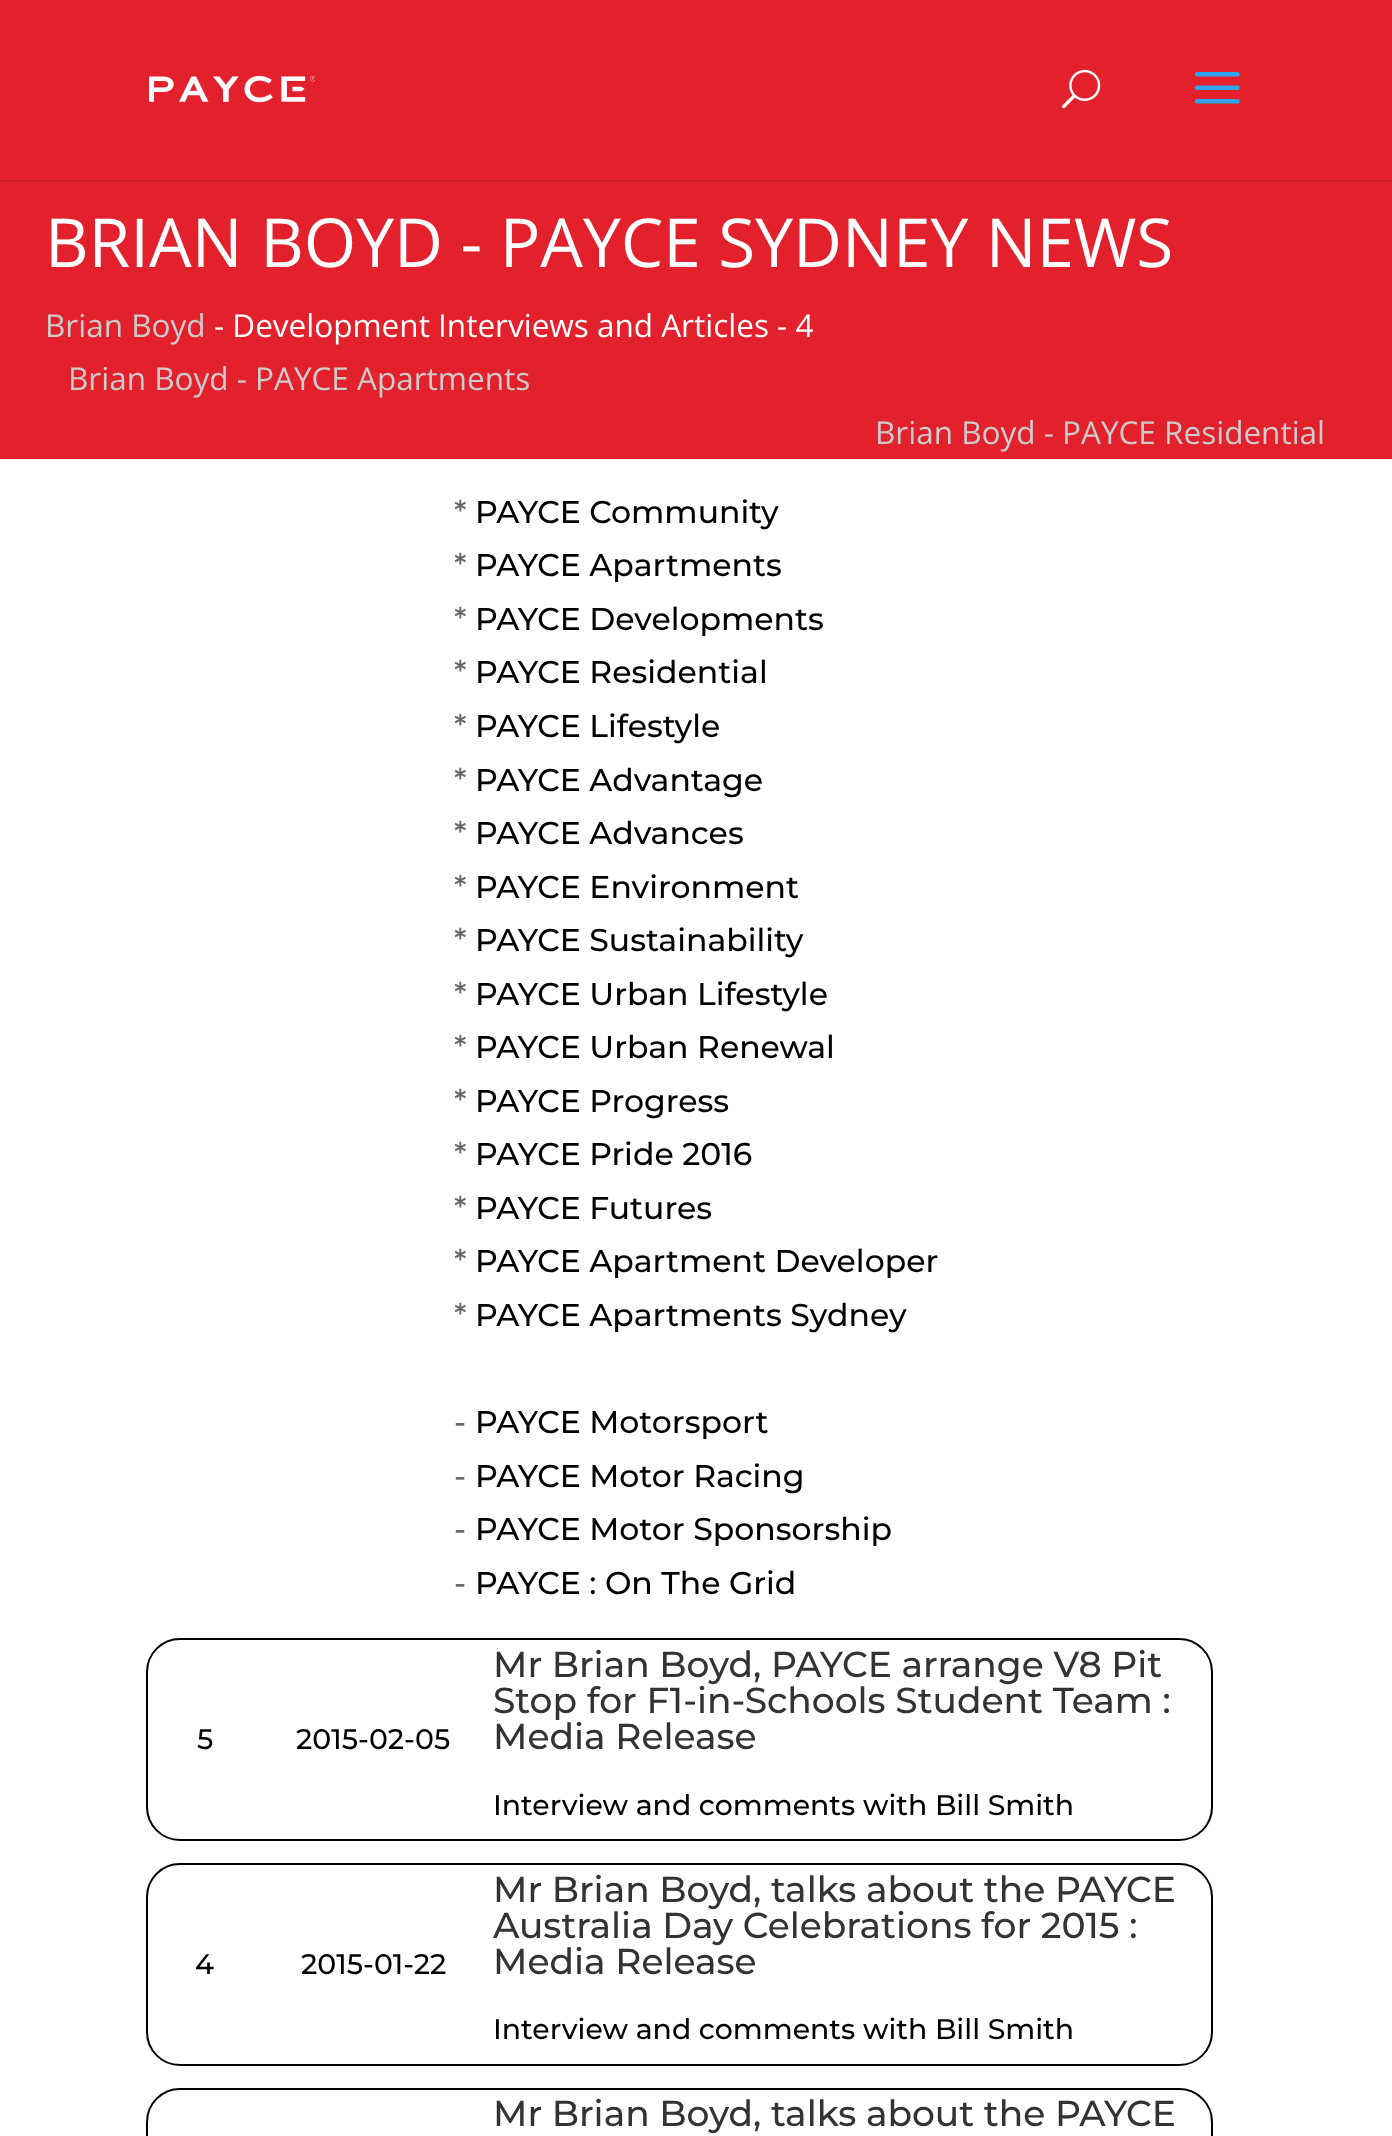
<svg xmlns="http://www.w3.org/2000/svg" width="1392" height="2136">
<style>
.a{font:67.5px Open Sans;fill:#fff}
.b{font:31.5px Open Sans;fill:#ccc}
.c{font:31.5px Open Sans;fill:#fff}
.d{font:500 31.5px Montserrat;fill:#666}
.e{font:500 31.5px Montserrat;fill:#000}
.f{font:500 28.35px Montserrat;fill:#000}
.g{font:500 36px Montserrat;fill:#333}
</style>
<rect width="100%" height="100%" fill="#fff"/>
<path fill="#cc1e29" d="M0 180v2h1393v-180v178z"/>
<path fill="#e3212d" d="M0 0h1392v180H0z"/>
<image href="1.png" x="149" y="75" width="166" height="28"/>
<image href="2.png" x="1061" y="69" width="40" height="40"/>
<image href="3.png" x="1194" y="72" width="46" height="32"/>
<path fill="#e3212d" d="M0 182h1392v277H0z"/>
<rect fill="none" stroke="#000" stroke-width="2" x="147" y="1639" width="1065" height="201" rx="33"/>
<rect fill="none" stroke="#000" stroke-width="2" x="147" y="1864" width="1065" height="201" rx="33"/>
<rect fill="none" stroke="#000" stroke-width="2" x="147" y="2089" width="1065" height="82" rx="33"/>
<text class="a" x="45" y="267">BRIAN BOYD - PAYCE SYDNEY NEWS</text>
<text class="b" x="45" y="337">Brian Boyd</text>
<text class="c" x="214" y="337">- Development Interviews and Articles - 4</text>
<text class="b" x="68" y="390">Brian Boyd - PAYCE Apartments</text>
<text class="b" x="875" y="444">Brian Boyd - PAYCE Residential</text>
<text class="d" x="454" y="523">*</text>
<text class="e" x="475" y="523">PAYCE Community</text>
<text class="d" x="454" y="576">*</text>
<text class="e" x="475" y="576">PAYCE Apartments</text>
<text class="d" x="454" y="630">*</text>
<text class="e" x="475" y="630">PAYCE Developments</text>
<text class="d" x="454" y="683">*</text>
<text class="e" x="475" y="683">PAYCE Residential</text>
<text class="d" x="454" y="737">*</text>
<text class="e" x="475" y="737">PAYCE Lifestyle</text>
<text class="d" x="454" y="791">*</text>
<text class="e" x="475" y="791">PAYCE Advantage</text>
<text class="d" x="454" y="844">*</text>
<text class="e" x="475" y="844">PAYCE Advances</text>
<text class="d" x="454" y="898">*</text>
<text class="e" x="475" y="898">PAYCE Environment</text>
<text class="d" x="454" y="951">*</text>
<text class="e" x="475" y="951">PAYCE Sustainability</text>
<text class="d" x="454" y="1005">*</text>
<text class="e" x="475" y="1005">PAYCE Urban Lifestyle</text>
<text class="d" x="454" y="1058">*</text>
<text class="e" x="475" y="1058">PAYCE Urban Renewal</text>
<text class="d" x="454" y="1112">*</text>
<text class="e" x="475" y="1112">PAYCE Progress</text>
<text class="d" x="454" y="1165">*</text>
<text class="e" x="475" y="1165">PAYCE Pride 2016</text>
<text class="d" x="454" y="1219">*</text>
<text class="e" x="475" y="1219">PAYCE Futures</text>
<text class="d" x="454" y="1272">*</text>
<text class="e" x="475" y="1272">PAYCE Apartment Developer</text>
<text class="d" x="454" y="1326">*</text>
<text class="e" x="475" y="1326">PAYCE Apartments Sydney</text>
<text class="d" x="454" y="1433">-</text>
<text class="e" x="475" y="1433">PAYCE Motorsport</text>
<text class="d" x="454" y="1487">-</text>
<text class="e" x="475" y="1487">PAYCE Motor Racing</text>
<text class="d" x="454" y="1540">-</text>
<text class="e" x="475" y="1540">PAYCE Motor Sponsorship</text>
<text class="d" x="454" y="1594">-</text>
<text class="e" x="475" y="1594">PAYCE : On The Grid</text>
<text class="f" x="197" y="1749">5</text>
<text class="f" x="296" y="1749">2015-02-05</text>
<text class="g" x="493" y="1677">Mr Brian Boyd, PAYCE arrange V8 Pit</text>
<text class="g" x="493" y="1713">Stop for F1-in-Schools Student Team :</text>
<text class="g" x="493" y="1749">Media Release</text>
<text class="f" x="493" y="1815">Interview and comments with Bill Smith</text>
<text class="f" x="195" y="1974">4</text>
<text class="f" x="301" y="1974">2015-01-22</text>
<text class="g" x="493" y="1902">Mr Brian Boyd, talks about the PAYCE</text>
<text class="g" x="493" y="1938">Australia Day Celebrations for 2015 :</text>
<text class="g" x="493" y="1974">Media Release</text>
<text class="f" x="493" y="2039">Interview and comments with Bill Smith</text>
<text class="g" x="493" y="2126">Mr Brian Boyd, talks about the PAYCE</text>
</svg>
